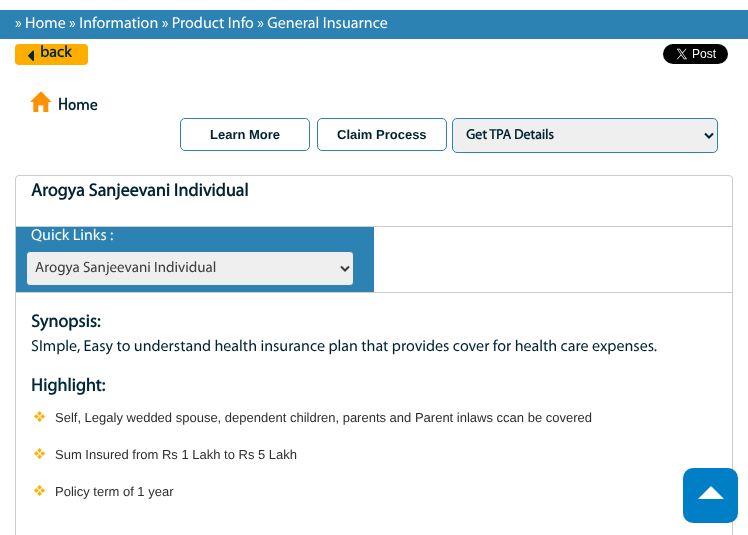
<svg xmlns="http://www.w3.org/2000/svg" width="748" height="535">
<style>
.a{font:16px Myriad;fill:#fff}
.b{font:bold 16px Myriad;fill:#00283a}
.c{font:600 17px Dosis;fill:#012232}
.d{font:bold 13px Liberation Sans;fill:#012232}
.e{font:bold 14px Myriad;fill:#012232}
.f{font:bold 18px Myriad;fill:#012232}
.g{font:15px Myriad;fill:#3b3b3b}
.h{font:bold 18px Myriad;fill:#00283a}
.i{font:16px Myriad;fill:#012232}
.j{font:13px Liberation Sans;fill:#2e2e2e}
</style>
<rect width="100%" height="100%" fill="#fff"/>
<path fill="#2c82b2" d="M0 10h748v29H0z"/>
<rect fill="#ffae00" x="15" y="44" width="73" height="21" rx="4"/>
<image href="1.png" x="28" y="50" width="6" height="11"/>
<image href="2.png" x="663" y="44" width="65" height="20"/>
<image href="3.png" x="30" y="91" width="22" height="21"/>
<rect fill="none" stroke="#2c82b2" x="180.5" y="118.5" width="129" height="32" rx="4.5"/>
<rect fill="none" stroke="#2c82b2" x="317.5" y="118.5" width="129" height="32" rx="4.5"/>
<rect fill="#efefef" stroke="#2c82b2" x="452.5" y="118.5" width="265" height="34" rx="4.5"/>
<path fill="none" stroke="#012232" stroke-width="2" d="M705 133.5l4 4l4-4"/>
<rect fill="none" stroke="#ccc" x="15.5" y="175.5" width="717" height="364" rx="3.5"/>
<path fill="#ccc" d="M16 292h716v1H16z"/>
<path fill="#ccc" d="M16 226h716v1H16z"/>
<path fill="#2c82b2" d="M16 227h358v65H16z"/>
<rect fill="#efefef" stroke="#2c82b2" x="26.5" y="251.5" width="327" height="34" rx="3.5"/>
<path fill="none" stroke="#3b3b3b" stroke-width="2" d="M341 266.5l4 4l4-4"/>
<image href="4.png" x="34" y="411" width="11" height="11"/>
<image href="4.png" x="34" y="448" width="11" height="11"/>
<image href="4.png" x="34" y="485" width="11" height="11"/>
<rect fill="#007ec6" x="683" y="468" width="55" height="55" rx="10"/>
<path fill="#fff" d="M724 499h-26l13-13z"/>
<text class="a" x="15" y="28">» Home » Information » Product Info » General Insuarnce</text>
<text class="b" x="40" y="57">back</text>
<text class="c" x="58" y="110">Home</text>
<text class="d" x="210" y="139">Learn More</text>
<text class="d" x="337" y="139">Claim Process</text>
<text class="e" x="466" y="139">Get TPA Details</text>
<text class="f" x="31" y="196">Arogya Sanjeevani Individual</text>
<text class="a" x="31" y="240">Quick Links :</text>
<text class="g" x="35" y="272">Arogya Sanjeevani Individual</text>
<text class="h" x="31" y="327">Synopsis:</text>
<text class="i" x="31" y="351">SImple, Easy to understand health insurance plan that provides cover for health care expenses.</text>
<text class="h" x="31" y="391">Highlight:</text>
<text class="j" x="55" y="422">Self, Legaly wedded spouse, dependent children, parents and Parent inlaws ccan be covered</text>
<text class="j" x="55" y="459">Sum Insured from Rs 1 Lakh to Rs 5 Lakh</text>
<text class="j" x="55" y="496">Policy term of 1 year</text>
</svg>
